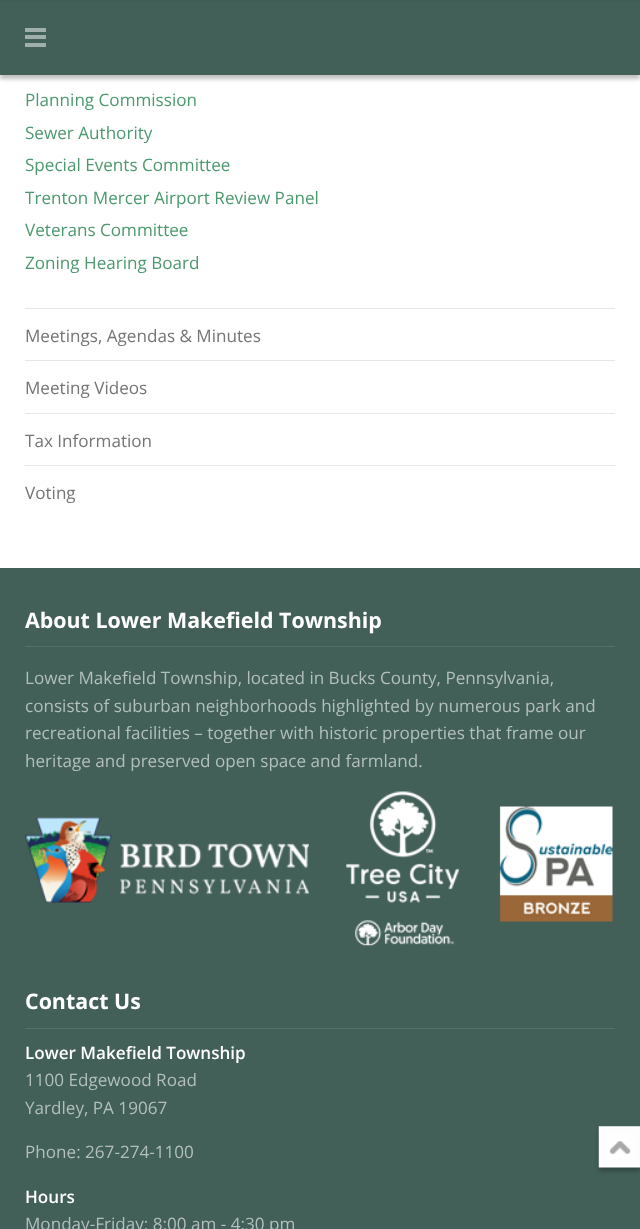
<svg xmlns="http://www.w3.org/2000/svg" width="640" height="1229">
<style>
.a{font:17.1px Open Sans;fill:#4d996f}
.b{font:17.1px Open Sans;fill:#757575}
.c{font:bold 21.4px Open Sans;fill:#fff}
.d{font:17.1px Open Sans;fill:#b3bfbc}
.e{font:600 17.1px Open Sans;fill:#fff}
</style>
<rect width="100%" height="100%" fill="#425f58"/>
<path fill="#fff" d="M0 75h640v493H0z"/>
<path fill="#00000040" filter="blur(2px)" d="M0 4h640v75H0z"/>
<path fill="#425f58" d="M0 2h640v73H0z"/>
<path fill="#a1afac" d="M25 35h21v4H25z"/>
<path fill="#a1afac" d="M25 28h21v4H25z"/>
<path fill="#a1afac" d="M25 43h21v4H25z"/>
<path fill="#e7e7e7" d="M25 308h590v1H25z"/>
<path fill="#e7e7e7" d="M25 360h590v1H25z"/>
<path fill="#e7e7e7" d="M25 413h590v1H25z"/>
<path fill="#e7e7e7" d="M25 465h590v1H25z"/>
<path fill="#556f69" d="M25 646h590v1H25z"/>
<image href="1.png" x="25" y="791" width="588" height="155"/>
<path fill="#556f69" d="M25 1028h590v1H25z"/>
<path fill="#00000040" filter="blur(2px)" d="M599 1130h41v41H599z"/>
<image href="2.png" x="598" y="1126" width="42" height="42"/>
<text class="a" x="25" y="106">Planning Commission</text>
<text class="a" x="25" y="139">Sewer Authority</text>
<text class="a" x="25" y="171">Special Events Committee</text>
<text class="a" x="25" y="204">Trenton Mercer Airport Review Panel</text>
<text class="a" x="25" y="236">Veterans Committee</text>
<text class="a" x="25" y="269">Zoning Hearing Board</text>
<text class="b" x="25" y="342">Meetings, Agendas &amp; Minutes</text>
<text class="b" x="25" y="394">Meeting Videos</text>
<text class="b" x="25" y="447">Tax Information</text>
<text class="b" x="25" y="499">Voting</text>
<text class="c" x="25" y="628">About Lower Makefield Township</text>
<text class="d" x="25" y="684">Lower Makefield Township, located in Bucks County, Pennsylvania,</text>
<text class="d" x="25" y="712">consists of suburban neighborhoods highlighted by numerous park and</text>
<text class="d" x="25" y="739">recreational facilities – together with historic properties that frame our</text>
<text class="d" x="25" y="767">heritage and preserved open space and farmland.</text>
<text class="c" x="25" y="1009">Contact Us</text>
<text class="e" x="25" y="1059">Lower Makefield Township</text>
<text class="d" x="25" y="1086">1100 Edgewood Road</text>
<text class="d" x="25" y="1114">Yardley, PA 19067</text>
<text class="d" x="25" y="1158">Phone: 267-274-1100</text>
<text class="e" x="25" y="1203">Hours</text>
<text class="d" x="25" y="1230">Monday-Friday: 8:00 am - 4:30 pm</text>
</svg>
